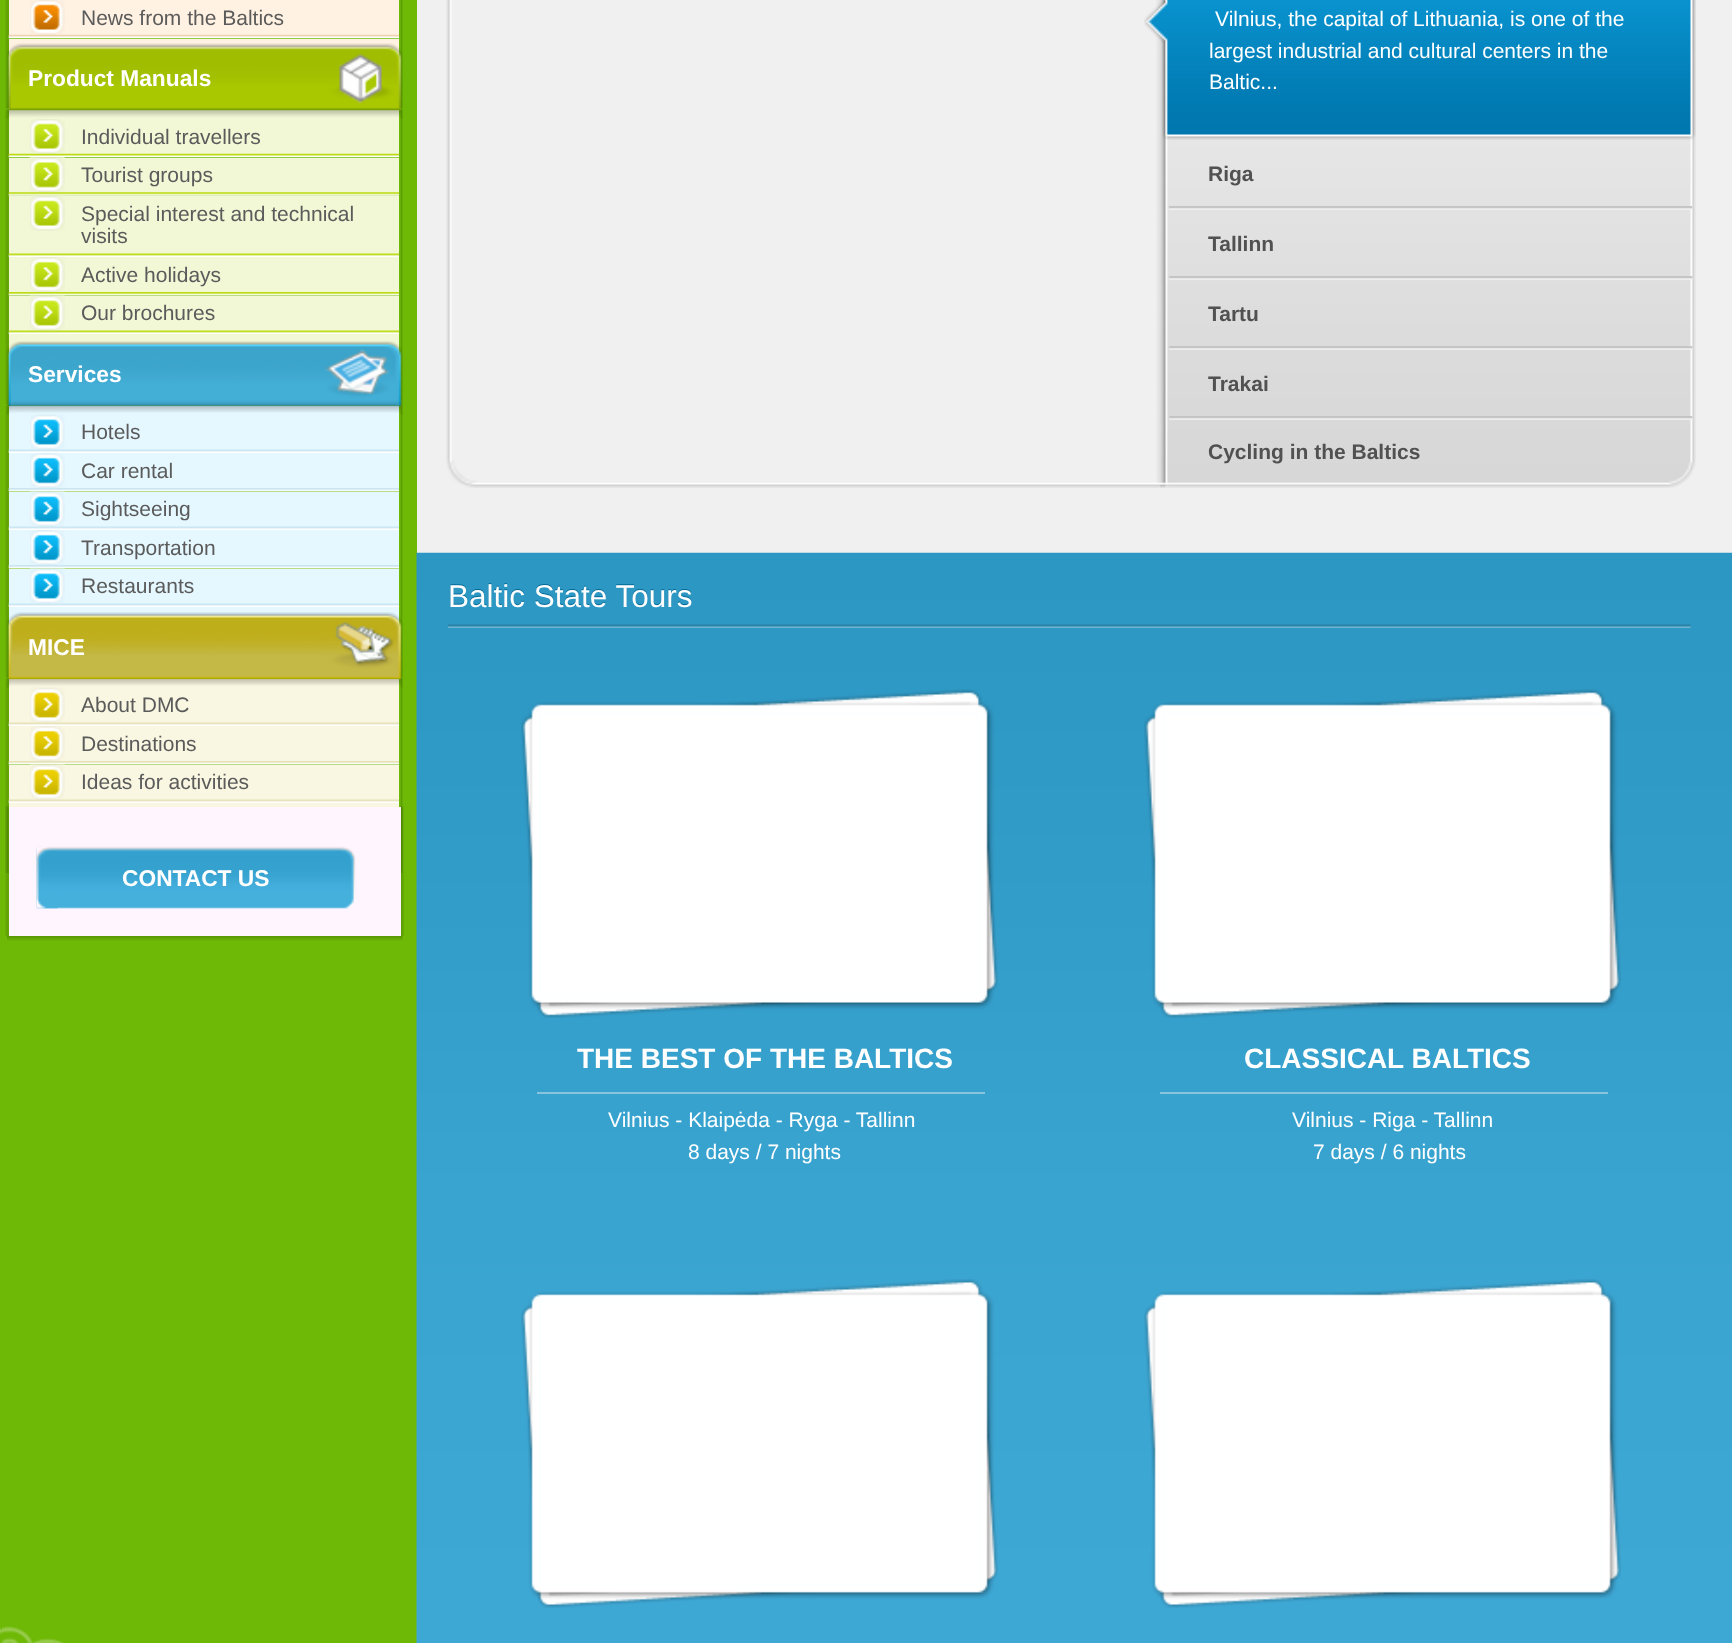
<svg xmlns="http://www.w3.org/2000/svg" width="1732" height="1643">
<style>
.a{font:21px Liberation Sans;fill:#5b5b5b}
.b{font:bold 22.75px Liberation Sans;fill:#fff}
.c{font:21px Liberation Sans;fill:#fff}
.d{font:bold 21px Liberation Sans;fill:#515151}
.e{font:31.5px Liberation Sans;fill:#006a97}
.f{font:31.5px Liberation Sans;fill:#fff}
.g{font:bold 28px Liberation Sans;fill:#fff}
</style>
<rect width="100%" height="100%" fill="#6eb806"/>
<image href="48.png" x="0" y="1627" width="2" height="8"/>
<image href="1.png" x="1" y="0" width="416" height="1643"/>
<image href="2.png" x="1" y="1626" width="64" height="17"/>
<image href="3.png" x="5" y="0" width="398" height="109"/>
<path fill="#fff2e2" d="M9 0h390v35H9z"/>
<image href="4.png" x="30" y="0" width="35" height="35"/>
<image href="5.png" x="8" y="34" width="391" height="5"/>
<path fill="#fff2e2" d="M9 39h390v70H9z"/>
<image href="7.png" x="5" y="110" width="398" height="294"/>
<path fill="#f2f8d6" d="M9 110h390v44H9z"/>
<image href="6.png" x="5" y="43" width="398" height="76"/>
<image href="8.png" x="30" y="119" width="35" height="35"/>
<image href="9.png" x="8" y="153" width="391" height="5"/>
<path fill="#f2f8d6" d="M9 158h390v35H9z"/>
<image href="10.png" x="29" y="157" width="36" height="35"/>
<image href="11.png" x="8" y="192" width="391" height="4"/>
<path fill="#f2f8d6" d="M9 196h390v58H9z"/>
<image href="12.png" x="30" y="195" width="35" height="36"/>
<image href="13.png" x="8" y="253" width="391" height="4"/>
<path fill="#f2f8d6" d="M9 257h390v35H9z"/>
<image href="14.png" x="30" y="257" width="35" height="35"/>
<image href="15.png" x="8" y="292" width="391" height="4"/>
<path fill="#f2f8d6" d="M9 296h390v35H9z"/>
<image href="16.png" x="29" y="295" width="36" height="36"/>
<image href="17.png" x="8" y="330" width="391" height="4"/>
<path fill="#f2f8d6" d="M9 334h390v70H9z"/>
<image href="19.png" x="5" y="405" width="398" height="272"/>
<path fill="#e5f8ff" d="M9 406h390v44H9z"/>
<image href="20.png" x="30" y="414" width="35" height="36"/>
<image href="18.png" x="6" y="341" width="397" height="74"/>
<image href="21.png" x="8" y="449" width="391" height="4"/>
<path fill="#e5f8ff" d="M9 453h390v35H9z"/>
<image href="22.png" x="30" y="453" width="35" height="35"/>
<image href="23.png" x="8" y="488" width="391" height="4"/>
<path fill="#e5f8ff" d="M9 492h390v35H9z"/>
<image href="24.png" x="29" y="491" width="36" height="36"/>
<image href="21.png" x="8" y="526" width="391" height="4"/>
<path fill="#e5f8ff" d="M9 530h390v35H9z"/>
<image href="22.png" x="30" y="530" width="35" height="35"/>
<image href="23.png" x="8" y="565" width="391" height="4"/>
<path fill="#e5f8ff" d="M9 569h390v35H9z"/>
<image href="24.png" x="29" y="568" width="36" height="36"/>
<image href="21.png" x="8" y="603" width="391" height="4"/>
<path fill="#e5f8ff" d="M9 607h390v70H9z"/>
<image href="26.png" x="5" y="678" width="398" height="195"/>
<path fill="#f9f7e1" d="M9 679h390v44H9z"/>
<image href="27.png" x="30" y="687" width="35" height="36"/>
<image href="25.png" x="6" y="612" width="397" height="76"/>
<image href="28.png" x="8" y="722" width="391" height="4"/>
<path fill="#f9f7e1" d="M9 726h390v35H9z"/>
<image href="29.png" x="30" y="726" width="35" height="35"/>
<image href="30.png" x="8" y="761" width="391" height="4"/>
<path fill="#f9f7e1" d="M9 765h390v35H9z"/>
<image href="31.png" x="29" y="764" width="36" height="36"/>
<image href="28.png" x="8" y="799" width="391" height="4"/>
<path fill="#f9f7e1" d="M9 803h390v4H9z"/>
<image href="32.png" x="5" y="806" width="399" height="130"/>
<path fill="#fff5fe" d="M9 807h392v129H9z"/>
<image href="33.png" x="36" y="846" width="320" height="63"/>
<image href="34.png" x="36" y="847" width="22" height="62"/>
<image href="35.png" x="7" y="936" width="396" height="5"/>
<path fill="#f0f0f0" d="M417 0h1315v553H417z"/>
<image href="36.png" x="446" y="0" width="721" height="488"/>
<image href="37.png" x="1156" y="0" width="540" height="488"/>
<image href="38.png" x="1144" y="0" width="552" height="140"/>
<image href="39.png" x="1168" y="206" width="525" height="4"/>
<image href="40.png" x="1168" y="276" width="525" height="4"/>
<image href="41.png" x="1168" y="346" width="525" height="4"/>
<image href="42.png" x="1169" y="416" width="524" height="4"/>
<image href="43.png" x="451" y="459" width="18" height="24"/>
<image href="44.png" x="416" y="552" width="1316" height="1091"/>
<image href="45.png" x="448" y="624" width="1243" height="4"/>
<image href="46.png" x="521" y="689" width="477" height="329"/>
<path fill="#88c4de" d="M537 1092h448v2H537z"/>
<image href="46.png" x="1144" y="689" width="477" height="329"/>
<path fill="#88c4de" d="M1160 1092h448v2H1160z"/>
<image href="47.png" x="521" y="1279" width="477" height="329"/>
<image href="47.png" x="1144" y="1279" width="477" height="329"/>
<text class="a" x="81" y="25">News from the Baltics</text>
<text class="b" x="28" y="86">Product Manuals</text>
<text class="a" x="81" y="144">Individual travellers</text>
<text class="a" x="81" y="182">Tourist groups</text>
<text class="a" x="81" y="221">Special interest and technical</text>
<text class="a" x="81" y="243">visits</text>
<text class="a" x="81" y="282">Active holidays</text>
<text class="a" x="81" y="320">Our brochures</text>
<text class="b" x="28" y="382">Services</text>
<text class="a" x="81" y="439">Hotels</text>
<text class="a" x="81" y="478">Car rental</text>
<text class="a" x="81" y="516">Sightseeing</text>
<text class="a" x="81" y="555">Transportation</text>
<text class="a" x="81" y="593">Restaurants</text>
<text class="b" x="28" y="655">MICE</text>
<text class="a" x="81" y="712">About DMC</text>
<text class="a" x="81" y="751">Destinations</text>
<text class="a" x="81" y="789">Ideas for activities</text>
<text class="b" x="122" y="886">CONTACT US</text>
<text class="c" x="1215" y="26">Vilnius, the capital of Lithuania, is one of the</text>
<text class="c" x="1209" y="58">largest industrial and cultural centers in the</text>
<text class="c" x="1209" y="89">Baltic...</text>
<text class="d" x="1208" y="181">Riga</text>
<text class="d" x="1208" y="251">Tallinn</text>
<text class="d" x="1208" y="321">Tartu</text>
<text class="d" x="1208" y="391">Trakai</text>
<text class="d" x="1208" y="459">Cycling in the Baltics</text>
<text class="e" x="448" y="606">Baltic State Tours</text>
<text class="f" x="448" y="607">Baltic State Tours</text>
<text class="g" x="577" y="1068">THE BEST OF THE BALTICS</text>
<text class="c" x="608" y="1127">Vilnius - Klaipėda - Ryga - Tallinn</text>
<text class="c" x="688" y="1159">8 days / 7 nights</text>
<text class="g" x="1244" y="1068">CLASSICAL BALTICS</text>
<text class="c" x="1292" y="1127">Vilnius - Riga - Tallinn</text>
<text class="c" x="1313" y="1159">7 days / 6 nights</text>
</svg>
